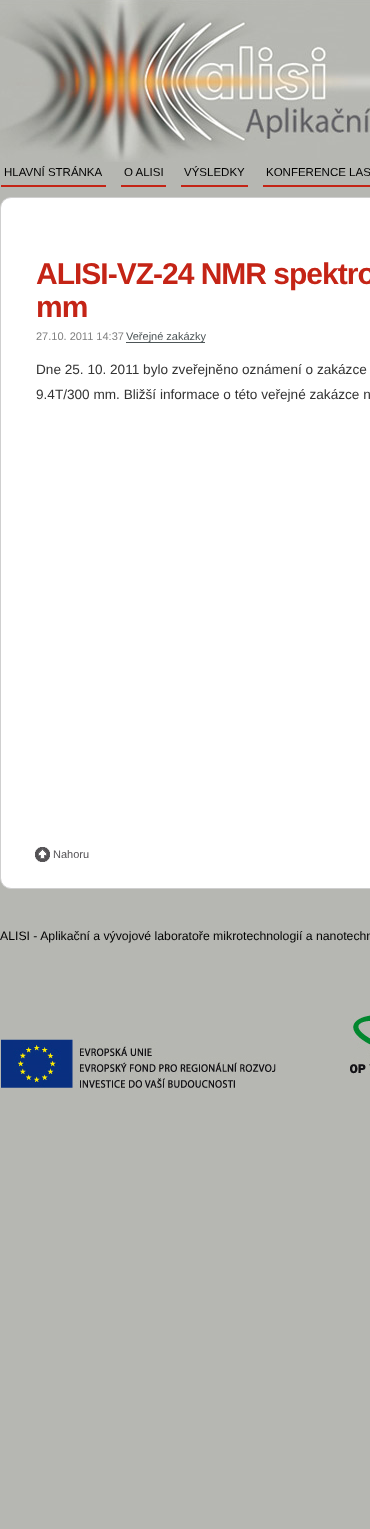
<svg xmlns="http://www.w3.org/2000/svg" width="370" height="1529">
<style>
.a{font:11.5px Liberation Sans;fill:#000}
.b{font:bold 30px Liberation Sans;letter-spacing:-1px;fill:#c42416}
.c{font:11px Liberation Sans;fill:#808080}
.d{font:11px Liberation Sans;fill:#4d5557}
.e{font:13.6px Liberation Sans;fill:#333}
.f{font:11px Liberation Sans;fill:#545255}
.g{font:12.25px Liberation Sans;fill:#000}
</style>
<rect width="100%" height="100%" fill="#b6b7b2"/>
<image href="1.png" x="0" y="0" width="370" height="162"/>
<path fill="#c42416" d="M1 185h105v2H1z"/>
<path fill="#c42416" d="M121 185h45v2H121z"/>
<path fill="#c42416" d="M181 185h67v2H181z"/>
<path fill="#c42416" d="M263 185h107v2H263z"/>
<rect fill="#fff" stroke="#cfcfcf" x="0.5" y="197.5" width="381" height="691" rx="10.5"/>
<path fill="#4d5557" d="M126 342h79v1H126z"/>
<image href="2.png" x="35" y="847" width="15" height="15"/>
<image href="3.png" x="0" y="1038" width="276" height="51"/>
<image href="4.png" x="350" y="1015" width="20" height="59"/>
<text class="a" x="4" y="176">HLAVNÍ STRÁNKA</text>
<text class="a" x="124" y="176">O ALISI</text>
<text class="a" x="184" y="176">VÝSLEDKY</text>
<text class="a" x="266" y="176">KONFERENCE LAS</text>
<text class="b" x="36" y="284">ALISI-VZ-24 NMR spektro</text>
<text class="b" x="36" y="317">mm</text>
<text class="c" x="36" y="340">27.10. 2011 14:37</text>
<text class="d" x="126" y="340">Veřejné zakázky</text>
<text class="e" x="36" y="374">Dne 25. 10. 2011 bylo zveřejněno oznámení o zakázce</text>
<text class="e" x="36" y="399">9.4T/300 mm. Bližší informace o této veřejné zakázce n</text>
<text class="f" x="53" y="858">Nahoru</text>
<text class="g" x="0" y="940">ALISI - Aplikační a vývojové laboratoře mikrotechnologií a nanotechn</text>
</svg>
